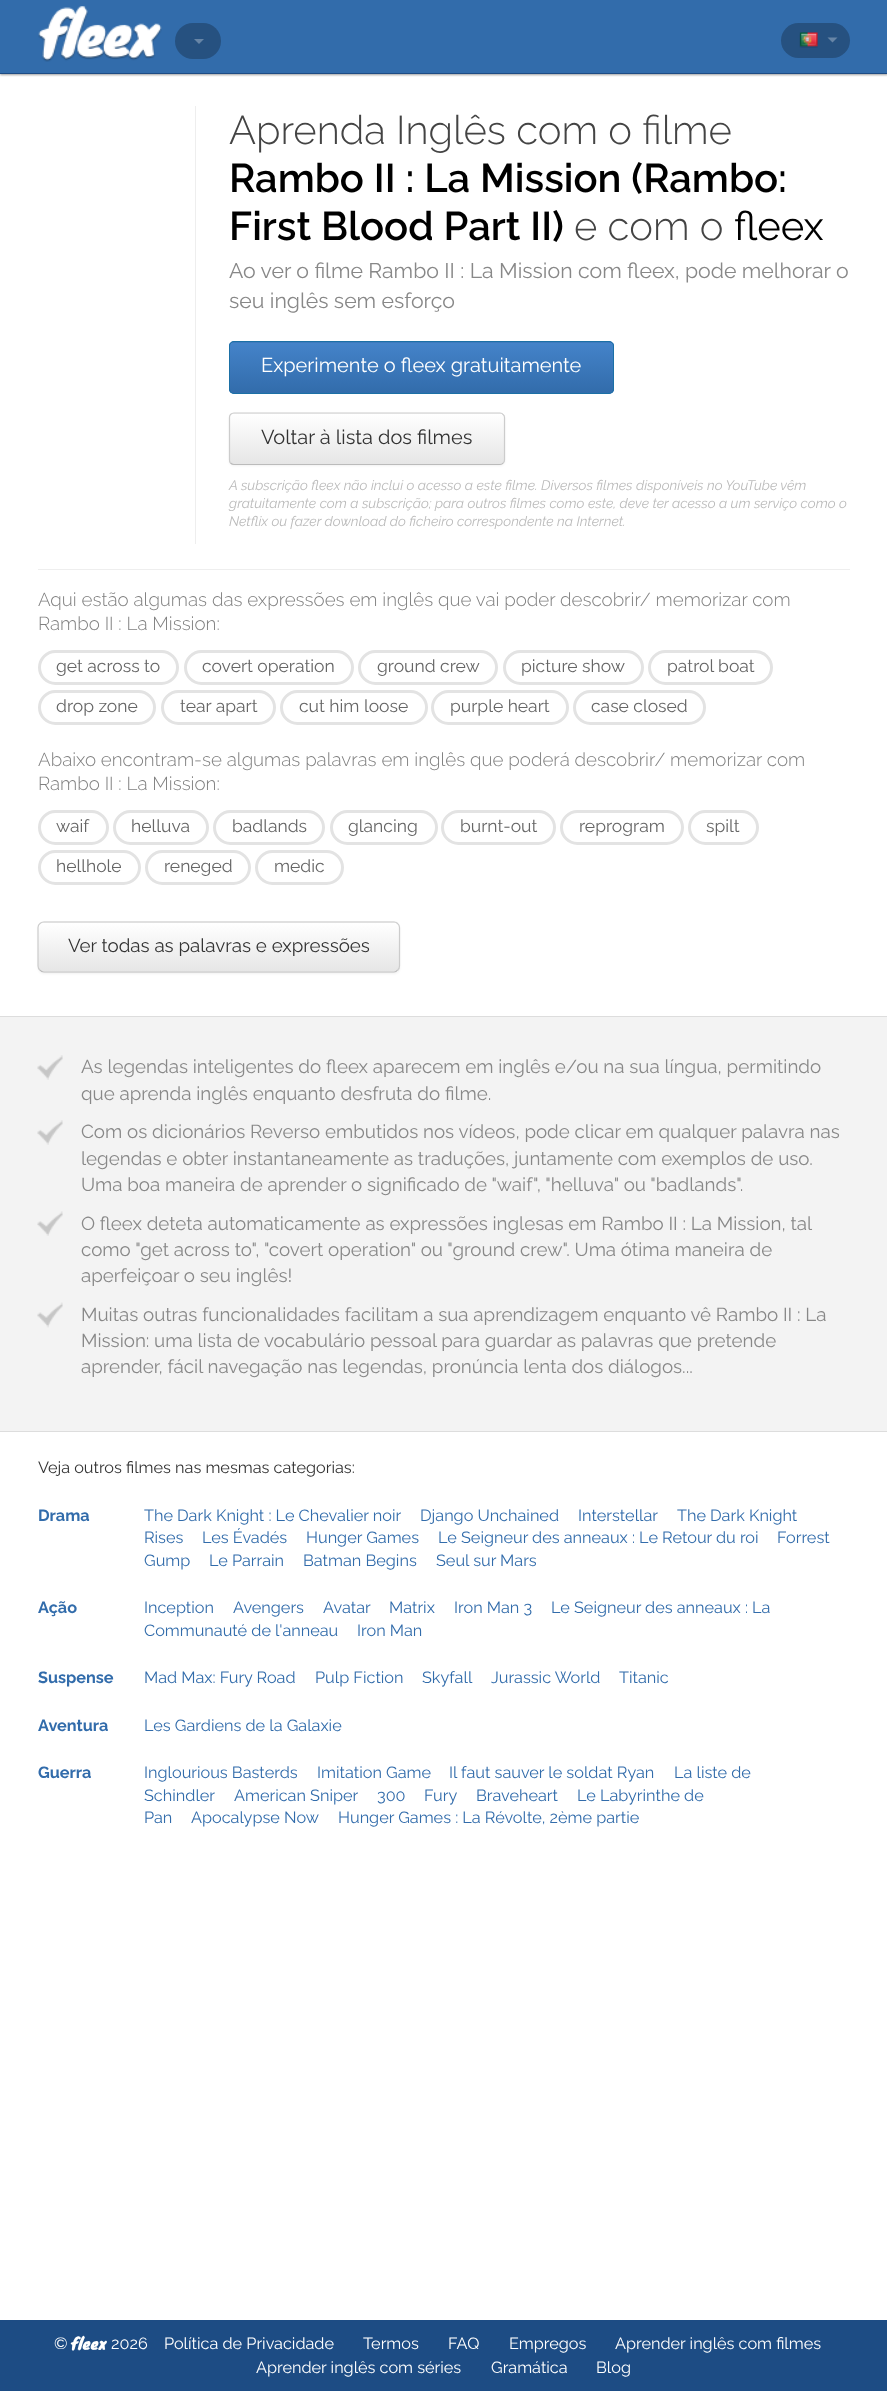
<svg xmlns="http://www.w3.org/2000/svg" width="887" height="2391">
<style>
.a{font:300 40px Raleway;fill:#444}
.b{font:600 40px Raleway;fill:#000}
.c{font:40px Raleway;fill:#000}
.d{font:21.25px Raleway;fill:#888}
.e{font:20px Raleway;fill:#fff}
.f{font:20px Raleway;fill:#333}
.g{font:italic 13.75px Raleway;fill:#bbb}
.h{font:300 18.75px Raleway;fill:#808080}
.i{font:17.5px Raleway;fill:#666}
.j{font:18.75px Raleway;fill:#333}
.k{font:18.75px Raleway;fill:#888}
.l{font:16.25px Raleway;fill:#333}
.m{font:bold 16.25px Raleway;fill:#326cab}
.n{font:16.25px Raleway;fill:#326cab}
.o{font:16.25px Raleway;fill:#fff}
.p{font:16.25px Knewave;fill:#fff}
</style>
<defs>
<clipPath id="clip1"><rect x="229" y="341" width="385" height="53" rx="5"/></clipPath>
<linearGradient id="g1" gradientUnits="userSpaceOnUse" x1="421" y1="343" x2="421" y2="393"><stop offset="0" stop-color="#4483c9"/><stop offset="1" stop-color="#326cab"/></linearGradient>
<clipPath id="clip2"><rect x="229" y="413" width="276" height="52" rx="5"/></clipPath>
<linearGradient id="g2" gradientUnits="userSpaceOnUse" x1="367" y1="414" x2="367" y2="464"><stop offset="0" stop-color="#fff"/><stop offset="1" stop-color="#e6e6e6"/></linearGradient>
<clipPath id="clip3"><rect x="38" y="921" width="362" height="52" rx="6"/></clipPath>
<linearGradient id="g3" gradientUnits="userSpaceOnUse" x1="219" y1="923" x2="219" y2="971"><stop offset="0" stop-color="#fff"/><stop offset="1" stop-color="#e6e6e6"/></linearGradient>
</defs>
<rect width="100%" height="100%" fill="#fff"/>
<path fill="#9d9d9d" filter="blur(1px)" d="M0 1h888v74H0z"/>
<path fill="#326cab" d="M0 0h887v73H0z"/>
<path fill="#1d4c84" d="M0 73h887v1H0z"/>
<image href="1.png" x="38" y="6" width="124" height="56"/>
<rect fill="#265180" x="175" y="23" width="46" height="36" rx="18"/>
<path fill="#6785a6" d="M194 39h10l-5 5z"/>
<rect fill="#265180" x="781" y="23" width="69" height="35" rx="17.5"/>
<image href="2.png" x="799" y="32" width="19" height="16"/>
<path fill="#6785a6" d="M827.5 37.5h10l-5 5z"/>
<path fill="#eee" d="M195 106h1v438H195z"/>
<rect fill="#3d7abd" x="229" y="341" width="385" height="53" rx="5"/>
<g clip-path="url(#clip1)">
<path fill="url(#g1)" d="M229 343h385v50H229z"/>
</g>
<rect fill="none" stroke="#1b70a6" x="229.5" y="341.5" width="384" height="52" rx="4.5"/>
<rect fill="#0000000d" filter="blur(1px)" x="229" y="414" width="276" height="52" rx="5"/>
<rect fill="#f5f5f5" x="229" y="413" width="276" height="52" rx="5"/>
<g clip-path="url(#clip2)">
<path fill="url(#g2)" d="M229 414h276v50H229z"/>
</g>
<path fill="none" stroke="#bbb" stroke-width="1.2" d="M503 463c-.5 1-2 1.5-3 1.5h-266c-1.5 0-2.5-.5-3.5-1.5"/>
<path fill="none" stroke="#ccc" stroke-width="1.2" d="M230.5 463c-.5-.5-1-2-1-3v-42.5c0-1 .5-2.5 1-3c1-1 2-1.5 3.5-1.5h266c1 0 2.5 .5 3 1.5c1 .5 1.5 2 1.5 3v42.5c0 1-.5 2.5-1.5 3"/>
<path fill="#eee" d="M38 569h812v1H38z"/>
<rect fill="none" stroke="#e3e3e3" stroke-width="3" x="39.5" y="651.5" width="138" height="32" rx="16"/>
<rect fill="none" stroke="#e3e3e3" stroke-width="3" x="185.5" y="651.5" width="167" height="32" rx="16"/>
<rect fill="none" stroke="#e3e3e3" stroke-width="3" x="359.5" y="651.5" width="137" height="32" rx="16"/>
<rect fill="none" stroke="#e3e3e3" stroke-width="3" x="504.5" y="651.5" width="138" height="32" rx="16"/>
<rect fill="none" stroke="#e3e3e3" stroke-width="3" x="649.5" y="651.5" width="122" height="32" rx="16"/>
<rect fill="none" stroke="#e3e3e3" stroke-width="3" x="39.5" y="691.5" width="115" height="32" rx="16"/>
<rect fill="none" stroke="#e3e3e3" stroke-width="3" x="162.5" y="691.5" width="112" height="32" rx="16"/>
<rect fill="none" stroke="#e3e3e3" stroke-width="3" x="281.5" y="691.5" width="145" height="32" rx="16"/>
<rect fill="none" stroke="#e3e3e3" stroke-width="3" x="432.5" y="691.5" width="135" height="32" rx="16"/>
<rect fill="none" stroke="#e3e3e3" stroke-width="3" x="574.5" y="691.5" width="130" height="32" rx="16"/>
<rect fill="none" stroke="#e3e3e3" stroke-width="3" x="39.5" y="811.5" width="68" height="32" rx="16"/>
<rect fill="none" stroke="#e3e3e3" stroke-width="3" x="114.5" y="811.5" width="93" height="32" rx="16"/>
<rect fill="none" stroke="#e3e3e3" stroke-width="3" x="214.5" y="811.5" width="109" height="32" rx="16"/>
<rect fill="none" stroke="#e3e3e3" stroke-width="3" x="331.5" y="811.5" width="105" height="32" rx="16"/>
<rect fill="none" stroke="#e3e3e3" stroke-width="3" x="442.5" y="811.5" width="112" height="32" rx="16"/>
<rect fill="none" stroke="#e3e3e3" stroke-width="3" x="561.5" y="811.5" width="121" height="32" rx="16"/>
<rect fill="none" stroke="#e3e3e3" stroke-width="3" x="689.5" y="811.5" width="68" height="32" rx="16"/>
<rect fill="none" stroke="#e3e3e3" stroke-width="3" x="39.5" y="851.5" width="100" height="32" rx="16"/>
<rect fill="none" stroke="#e3e3e3" stroke-width="3" x="146.5" y="851.5" width="103" height="32" rx="16"/>
<rect fill="none" stroke="#e3e3e3" stroke-width="3" x="256.5" y="851.5" width="86" height="32" rx="16"/>
<rect fill="#0000000d" filter="blur(1px)" x="38" y="923" width="362" height="51" rx="6"/>
<rect fill="#f5f5f5" x="38" y="921" width="362" height="52" rx="6"/>
<g clip-path="url(#clip3)">
<path fill="url(#g3)" d="M38 923h362v48H38z"/>
</g>
<path fill="none" stroke="#bbb" stroke-width="1.2" d="M397.5 970c-1 1.5-2.5 2-3.5 2h-350c-1.5 0-3-.5-4-2"/>
<path fill="none" stroke="#ccc" stroke-width="1.2" d="M40 970c-1.5-1-2-2.5-2-4v-38.5c0-1.5 .5-3 2-4c1-1 2.5-1.5 4-1.5h350c1 0 2.5 .5 3.5 1.5c1.5 1 2 2.5 2 4v38.5c0 1.5-.5 3-2 4"/>
<path fill="#f3f3f3" d="M0 1017h887v414H0z"/>
<path fill="#ddd" d="M0 1016h887v1H0z"/>
<image href="3.png" x="37" y="1055" width="26" height="25"/>
<image href="3.png" x="37" y="1120" width="26" height="25"/>
<image href="4.png" x="37" y="1211" width="26" height="25"/>
<image href="5.png" x="37" y="1302" width="26" height="26"/>
<path fill="#ddd" d="M0 1431h887v1H0z"/>
<path fill="#1d4c84" d="M0 2320h887v71H0z"/>
<text class="a" x="229" y="144">Aprenda Inglês com o filme</text>
<text class="b" x="229" y="192">Rambo II : La Mission (Rambo:</text>
<text class="b" x="229" y="240">First Blood Part II)</text>
<text class="a" x="574" y="240">e com o</text>
<text class="c" x="734" y="240">fleex</text>
<text class="d" x="229" y="278">Ao ver o filme Rambo II : La Mission com fleex, pode melhorar o</text>
<text class="d" x="229" y="308">seu inglês sem esforço</text>
<text class="e" x="261" y="372">Experimente o fleex gratuitamente</text>
<text class="f" x="261" y="444">Voltar à lista dos filmes</text>
<text class="g" x="229" y="490">A subscrição fleex não inclui o acesso a este filme. Diversos filmes disponíveis no YouTube vêm</text>
<text class="g" x="229" y="508">gratuitamente com a subscrição; para outros filmes como este, deve ter acesso a um serviço como o</text>
<text class="g" x="229" y="526">Netflix ou fazer download do ficheiro correspondente na Internet.</text>
<text class="h" x="38" y="606">Aqui estão algumas das expressões em inglês que vai poder descobrir/ memorizar com</text>
<text class="h" x="38" y="630">Rambo II : La Mission:</text>
<text class="i" x="56" y="672">get across to</text>
<text class="i" x="202" y="672">covert operation</text>
<text class="i" x="377" y="672">ground crew</text>
<text class="i" x="521" y="672">picture show</text>
<text class="i" x="667" y="672">patrol boat</text>
<text class="i" x="56" y="712">drop zone</text>
<text class="i" x="180" y="712">tear apart</text>
<text class="i" x="299" y="712">cut him loose</text>
<text class="i" x="450" y="712">purple heart</text>
<text class="i" x="591" y="712">case closed</text>
<text class="h" x="38" y="766">Abaixo encontram-se algumas palavras em inglês que poderá descobrir/ memorizar com</text>
<text class="h" x="38" y="790">Rambo II : La Mission:</text>
<text class="i" x="56" y="832">waif</text>
<text class="i" x="131" y="832">helluva</text>
<text class="i" x="232" y="832">badlands</text>
<text class="i" x="348" y="832">glancing</text>
<text class="i" x="460" y="832">burnt-out</text>
<text class="i" x="579" y="832">reprogram</text>
<text class="i" x="706" y="832">spilt</text>
<text class="i" x="56" y="872">hellhole</text>
<text class="i" x="164" y="872">reneged</text>
<text class="i" x="274" y="872">medic</text>
<text class="j" x="68" y="952">Ver todas as palavras e expressões</text>
<text class="k" x="81" y="1073">As legendas inteligentes do fleex aparecem em inglês e/ou na sua língua, permitindo</text>
<text class="k" x="81" y="1100">que aprenda inglês enquanto desfruta do filme.</text>
<text class="k" x="81" y="1138">Com os dicionários Reverso embutidos nos vídeos, pode clicar em qualquer palavra nas</text>
<text class="k" x="81" y="1165">legendas e obter instantaneamente as traduções, juntamente com exemplos de uso.</text>
<text class="k" x="81" y="1191">Uma boa maneira de aprender o significado de "waif", "helluva" ou "badlands".</text>
<text class="k" x="81" y="1230">O fleex deteta automaticamente as expressões inglesas em Rambo II : La Mission, tal</text>
<text class="k" x="81" y="1256">como "get across to", "covert operation" ou "ground crew". Uma ótima maneira de</text>
<text class="k" x="81" y="1282">aperfeiçoar o seu inglês!</text>
<text class="k" x="81" y="1321">Muitas outras funcionalidades facilitam a sua aprendizagem enquanto vê Rambo II : La</text>
<text class="k" x="81" y="1347">Mission: uma lista de vocabulário pessoal para guardar as palavras que pretende</text>
<text class="k" x="81" y="1373">aprender, fácil navegação nas legendas, pronúncia lenta dos diálogos...</text>
<text class="l" x="38" y="1473">Veja outros filmes nas mesmas categorias:</text>
<text class="m" x="38" y="1521">Drama</text>
<text class="n" x="144" y="1521">The Dark Knight : Le Chevalier noir</text>
<text class="n" x="420" y="1521">Django Unchained</text>
<text class="n" x="578" y="1521">Interstellar</text>
<text class="n" x="677" y="1521">The Dark Knight</text>
<text class="n" x="144" y="1543">Rises</text>
<text class="n" x="202" y="1543">Les Évadés</text>
<text class="n" x="306" y="1543">Hunger Games</text>
<text class="n" x="438" y="1543">Le Seigneur des anneaux : Le Retour du roi</text>
<text class="n" x="777" y="1543">Forrest</text>
<text class="n" x="144" y="1566">Gump</text>
<text class="n" x="209" y="1566">Le Parrain</text>
<text class="n" x="303" y="1566">Batman Begins</text>
<text class="n" x="436" y="1566">Seul sur Mars</text>
<text class="m" x="38" y="1613">Ação</text>
<text class="n" x="144" y="1613">Inception</text>
<text class="n" x="233" y="1613">Avengers</text>
<text class="n" x="323" y="1613">Avatar</text>
<text class="n" x="389" y="1613">Matrix</text>
<text class="n" x="454" y="1613">Iron Man 3</text>
<text class="n" x="551" y="1613">Le Seigneur des anneaux : La</text>
<text class="n" x="144" y="1636">Communauté de l'anneau</text>
<text class="n" x="357" y="1636">Iron Man</text>
<text class="m" x="38" y="1683">Suspense</text>
<text class="n" x="144" y="1683">Mad Max: Fury Road</text>
<text class="n" x="315" y="1683">Pulp Fiction</text>
<text class="n" x="422" y="1683">Skyfall</text>
<text class="n" x="491" y="1683">Jurassic World</text>
<text class="n" x="619" y="1683">Titanic</text>
<text class="m" x="38" y="1731">Aventura</text>
<text class="n" x="144" y="1731">Les Gardiens de la Galaxie</text>
<text class="m" x="38" y="1778">Guerra</text>
<text class="n" x="144" y="1778">Inglourious Basterds</text>
<text class="n" x="317" y="1778">Imitation Game</text>
<text class="n" x="449" y="1778">Il faut sauver le soldat Ryan</text>
<text class="n" x="674" y="1778">La liste de</text>
<text class="n" x="144" y="1801">Schindler</text>
<text class="n" x="234" y="1801">American Sniper</text>
<text class="n" x="377" y="1801">300</text>
<text class="n" x="424" y="1801">Fury</text>
<text class="n" x="476" y="1801">Braveheart</text>
<text class="n" x="577" y="1801">Le Labyrinthe de</text>
<text class="n" x="144" y="1823">Pan</text>
<text class="n" x="191" y="1823">Apocalypse Now</text>
<text class="n" x="338" y="1823">Hunger Games : La Révolte, 2ème partie</text>
<text class="o" x="54" y="2349">©</text>
<text class="p" x="71" y="2349">fleex</text>
<text class="o" x="111" y="2349">2026</text>
<text class="o" x="164" y="2349">Política de Privacidade</text>
<text class="o" x="363" y="2349">Termos</text>
<text class="o" x="448" y="2349">FAQ</text>
<text class="o" x="509" y="2349">Empregos</text>
<text class="o" x="615" y="2349">Aprender inglês com filmes</text>
<text class="o" x="256" y="2373">Aprender inglês com séries</text>
<text class="o" x="491" y="2373">Gramática</text>
<text class="o" x="596" y="2373">Blog</text>
</svg>
